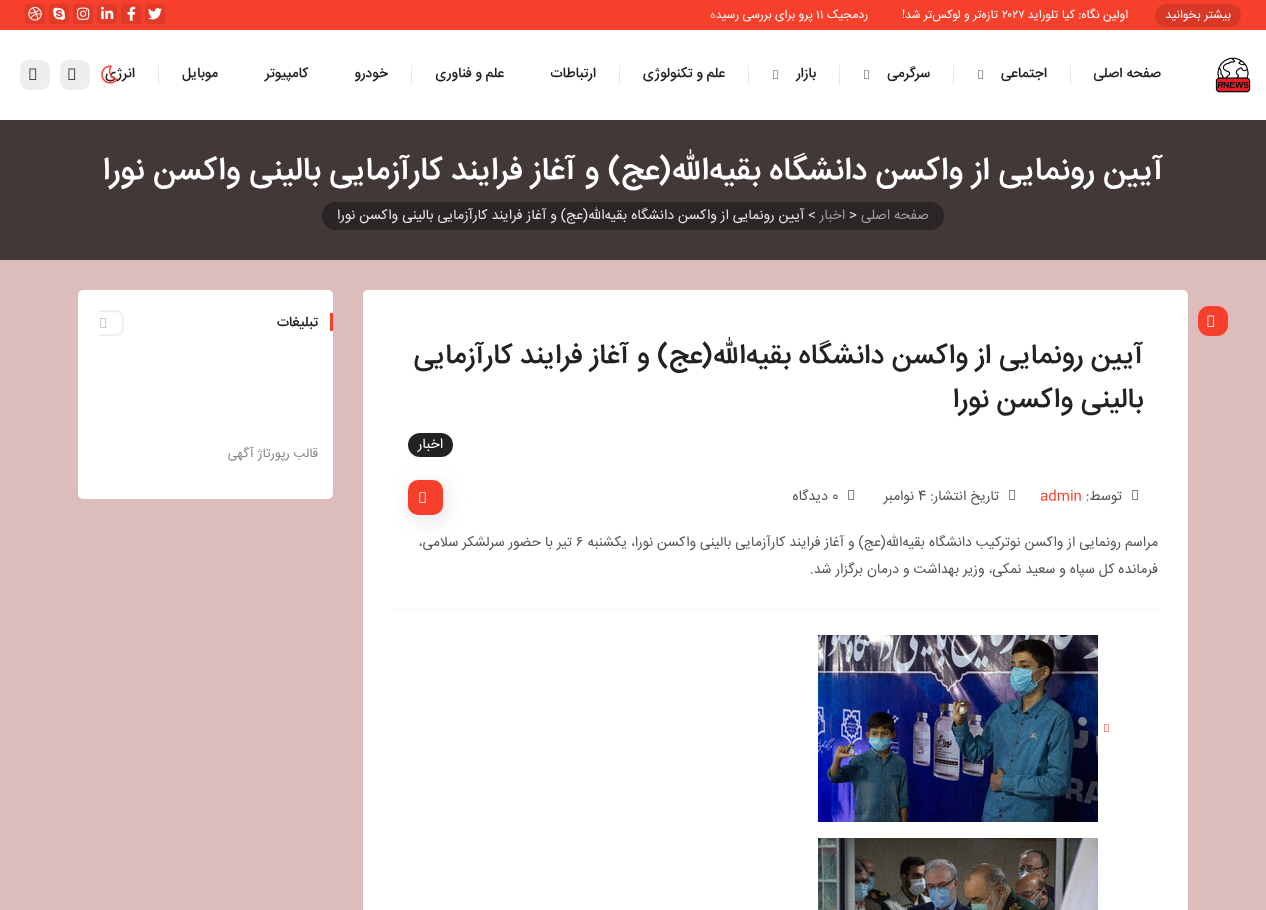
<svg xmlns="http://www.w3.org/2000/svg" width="1266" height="910">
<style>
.a{font:12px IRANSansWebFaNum;direction:rtl;fill:#fff}
.b{font:12px IRANSansWebFaNum;fill:#fff}
.c{font:500 14px IRANSansWebFaNum;direction:rtl;fill:#222}
.d{font:500 32px IRANSansWebFaNum;direction:rtl;fill:#fff}
.e{font:14px IRANSansWebFaNum;direction:rtl;fill:#9d9d9d}
.f{font:14px IRANSansWebFaNum;fill:#e5e5e5}
.g{font:14px IRANSansWebFaNum;direction:rtl;fill:#e5e5e5}
.h{font:500 28px IRANSansWebFaNum;direction:rtl;fill:#222}
.i{font:14px IRANSansWebFaNum;direction:rtl;fill:#fff}
.j{font:14px IRANSansWebFaNum;direction:rtl;fill:#555}
.k{font:14px IRANSansWebFaNum;fill:#f7402c}
.l{font:14px IRANSansWebFaNum;fill:#555}
.m{font:13px IRANSansWebFaNum;direction:rtl;fill:#878787}
</style>
<defs>
<linearGradient id="g1" gradientUnits="userSpaceOnUse" x1="1115" y1="16" x2="1149" y2="15"><stop offset="0.3" stop-color="#f7402c" stop-opacity="0"/><stop offset="1" stop-color="#f7402c"/></linearGradient>
<linearGradient id="g2" gradientUnits="userSpaceOnUse" x1="697" y1="15" x2="731" y2="15"><stop offset="0" stop-color="#f7402c"/><stop offset="0.7" stop-color="#f7402c" stop-opacity="0"/></linearGradient>
</defs>
<rect width="100%" height="100%" fill="#ddbcbc"/>
<path fill="#423838" d="M0 120h1266v140H0z"/>
<path fill="#fff" d="M0 30h1266v90H0z"/>
<path fill="#f7402c" d="M0 0h1266v30H0z"/>
<rect fill="#d93827" x="1155" y="4" width="86" height="23" rx="11.5"/>
<rect fill="#e13a28" x="145" y="4" width="20" height="20" rx="4"/>
<image href="1.png" x="148" y="8" width="14" height="12"/>
<rect fill="#e13a28" x="121" y="4" width="20" height="20" rx="4"/>
<image href="2.png" x="127" y="6" width="9" height="15"/>
<rect fill="#e13a28" x="97" y="4" width="20" height="20" rx="4"/>
<image href="3.png" x="101" y="6" width="13" height="13"/>
<rect fill="#e13a28" x="73" y="4" width="20" height="20" rx="4"/>
<image href="4.png" x="77" y="7" width="13" height="13"/>
<rect fill="#e13a28" x="49" y="4" width="20" height="20" rx="4"/>
<image href="5.png" x="53" y="7" width="13" height="13"/>
<rect fill="#e13a28" x="25" y="4" width="20" height="20" rx="4"/>
<image href="6.png" x="28" y="7" width="14" height="14"/>
<image href="7.png" x="1215" y="57" width="36" height="36"/>
<path fill="#e8e8e8" d="M1070 65h1v20H1070z"/>
<image href="8.png" x="978" y="70" width="6" height="9"/>
<path fill="#e8e8e8" d="M953 65h1v20H953z"/>
<image href="8.png" x="864" y="70" width="6" height="9"/>
<path fill="#e8e8e8" d="M839 65h1v20H839z"/>
<image href="8.png" x="773" y="70" width="6" height="9"/>
<path fill="#e8e8e8" d="M748 65h1v20H748z"/>
<path fill="#e8e8e8" d="M619 65h1v20H619z"/>
<path fill="#e8e8e8" d="M411 65h1v20H411z"/>
<path fill="#e8e8e8" d="M158 65h1v20H158z"/>
<rect fill="#eee" x="60" y="60" width="30" height="30" rx="9"/>
<image href="10.png" x="68" y="68" width="8" height="12"/>
<rect fill="#eee" x="20" y="60" width="30" height="30" rx="9"/>
<image href="10.png" x="29" y="68" width="8" height="12"/>
<rect fill="#2c2525" x="322" y="202" width="622" height="28" rx="14"/>
<rect fill="#fff" x="363" y="290" width="825" height="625" rx="5"/>
<rect fill="#f7402c" x="1198" y="306" width="30" height="30" rx="11"/>
<image href="11.png" x="1207" y="315" width="8" height="12"/>
<rect fill="#222" x="408" y="433" width="45" height="24" rx="12"/>
<image href="12.png" x="1132" y="490" width="7" height="10"/>
<image href="12.png" x="1009" y="490" width="7" height="10"/>
<image href="12.png" x="848" y="490" width="7" height="10"/>
<rect fill="#9c9c9c4a" filter="blur(10px)" x="411" y="485" width="35" height="35" rx="10"/>
<rect fill="#f7402c" x="408" y="480" width="35" height="35" rx="10"/>
<image href="13.png" x="419" y="492" width="7" height="11"/>
<path fill="#f5f5f5" d="M393 609h765v1H393z"/>
<image href="14.png" x="1104" y="724" width="5" height="8"/>
<image href="15.png" x="818" y="635" width="280" height="187"/>
<image href="16.png" x="818" y="838" width="280" height="72"/>
<rect fill="#fff" x="78" y="290" width="255" height="209" rx="5"/>
<path fill="#f7402c" d="M330 313h3v18H330z"/>
<path fill="#f0f0f0" fill-rule="evenodd" d="M99 310h17c4.5 0 8 3.5 8 8v10c0 4.5-3.5 8-8 8h-17zm0 2h14c9 0 9 3 9 11c0 8 0 11-9 11h-14z"/>
<image href="17.png" x="100" y="318" width="7" height="10"/>
<text class="a" x="1231" y="18">بیشتر بخوانید</text>
<text class="a" x="1128" y="18">اولین نگاه: کیا تلوراید</text>
<path fill="url(#g1)" d="M1126 10h2v8H1126z"/>
<text class="b" x="1002" y="18">۲۰۲۷</text>
<text class="a" x="998" y="18">تازه‌تر و لوکس‌تر شد!</text>
<text class="a" x="868" y="18">ردمجیک</text>
<text class="b" x="816" y="18">۱۱</text>
<text class="a" x="813" y="18">پرو برای بررسی رسیده</text>
<path fill="url(#g2)" d="M710 12h10v6H710z"/>
<text class="c" x="1161" y="77">صفحه اصلی</text>
<text class="c" x="1047" y="77">اجتماعی</text>
<text class="c" x="930" y="77">سرگرمی</text>
<text class="c" x="816" y="77">بازار</text>
<text class="c" x="725" y="77">علم و تکنولوژی</text>
<text class="c" x="596" y="77">ارتباطات</text>
<text class="c" x="504" y="77">علم و فناوری</text>
<text class="c" x="388" y="77">خودرو</text>
<text class="c" x="308" y="77">کامپیوتر</text>
<text class="c" x="218" y="77">موبایل</text>
<text class="c" x="135" y="77">انرژی</text>
<image href="9.png" x="101" y="65" width="17" height="19"/>
<text class="d" x="1163" y="179">آیین رونمایی از واکسن دانشگاه بقیه‌الله(عج) و آغاز فرایند کارآزمایی بالینی واکسن نورا</text>
<text class="e" x="929" y="219">صفحه اصلی</text>
<text class="f" x="849" y="219">&gt;</text>
<text class="e" x="845" y="219">اخبار</text>
<text class="g" x="816" y="219">&gt; آیین رونمایی از واکسن دانشگاه بقیه‌الله(عج) و آغاز فرایند کارآزمایی بالینی واکسن نورا</text>
<text class="h" x="1143" y="363">آیین رونمایی از واکسن دانشگاه بقیه‌الله(عج) و آغاز فرایند کارآزمایی</text>
<text class="h" x="1143" y="407">بالینی واکسن نورا</text>
<text class="i" x="443" y="448">اخبار</text>
<text class="j" x="1122" y="500">توسط:</text>
<text class="k" x="1040" y="500">admin</text>
<text class="j" x="999" y="500">تاریخ انتشار:</text>
<text class="l" x="918" y="500">4</text>
<text class="j" x="914" y="500">نوامبر</text>
<text class="l" x="832" y="500">0</text>
<text class="j" x="828" y="500">دیدگاه</text>
<text class="j" x="1158" y="546">مراسم رونمایی از واکسن نوترکیب دانشگاه بقیه‌الله(عج) و آغاز فرایند کارآزمایی بالینی واکسن نورا، یکشنبه</text>
<text class="l" x="576" y="546">۶</text>
<text class="j" x="572" y="546">تیر با حضور سرلشکر سلامی،</text>
<text class="j" x="1158" y="573">فرمانده کل سپاه و سعید نمکی، وزیر بهداشت و درمان برگزار شد.</text>
<text class="c" x="318" y="326">تبلیغات</text>
<text class="m" x="318" y="457">قالب رپورتاژ آگهی</text>
</svg>
